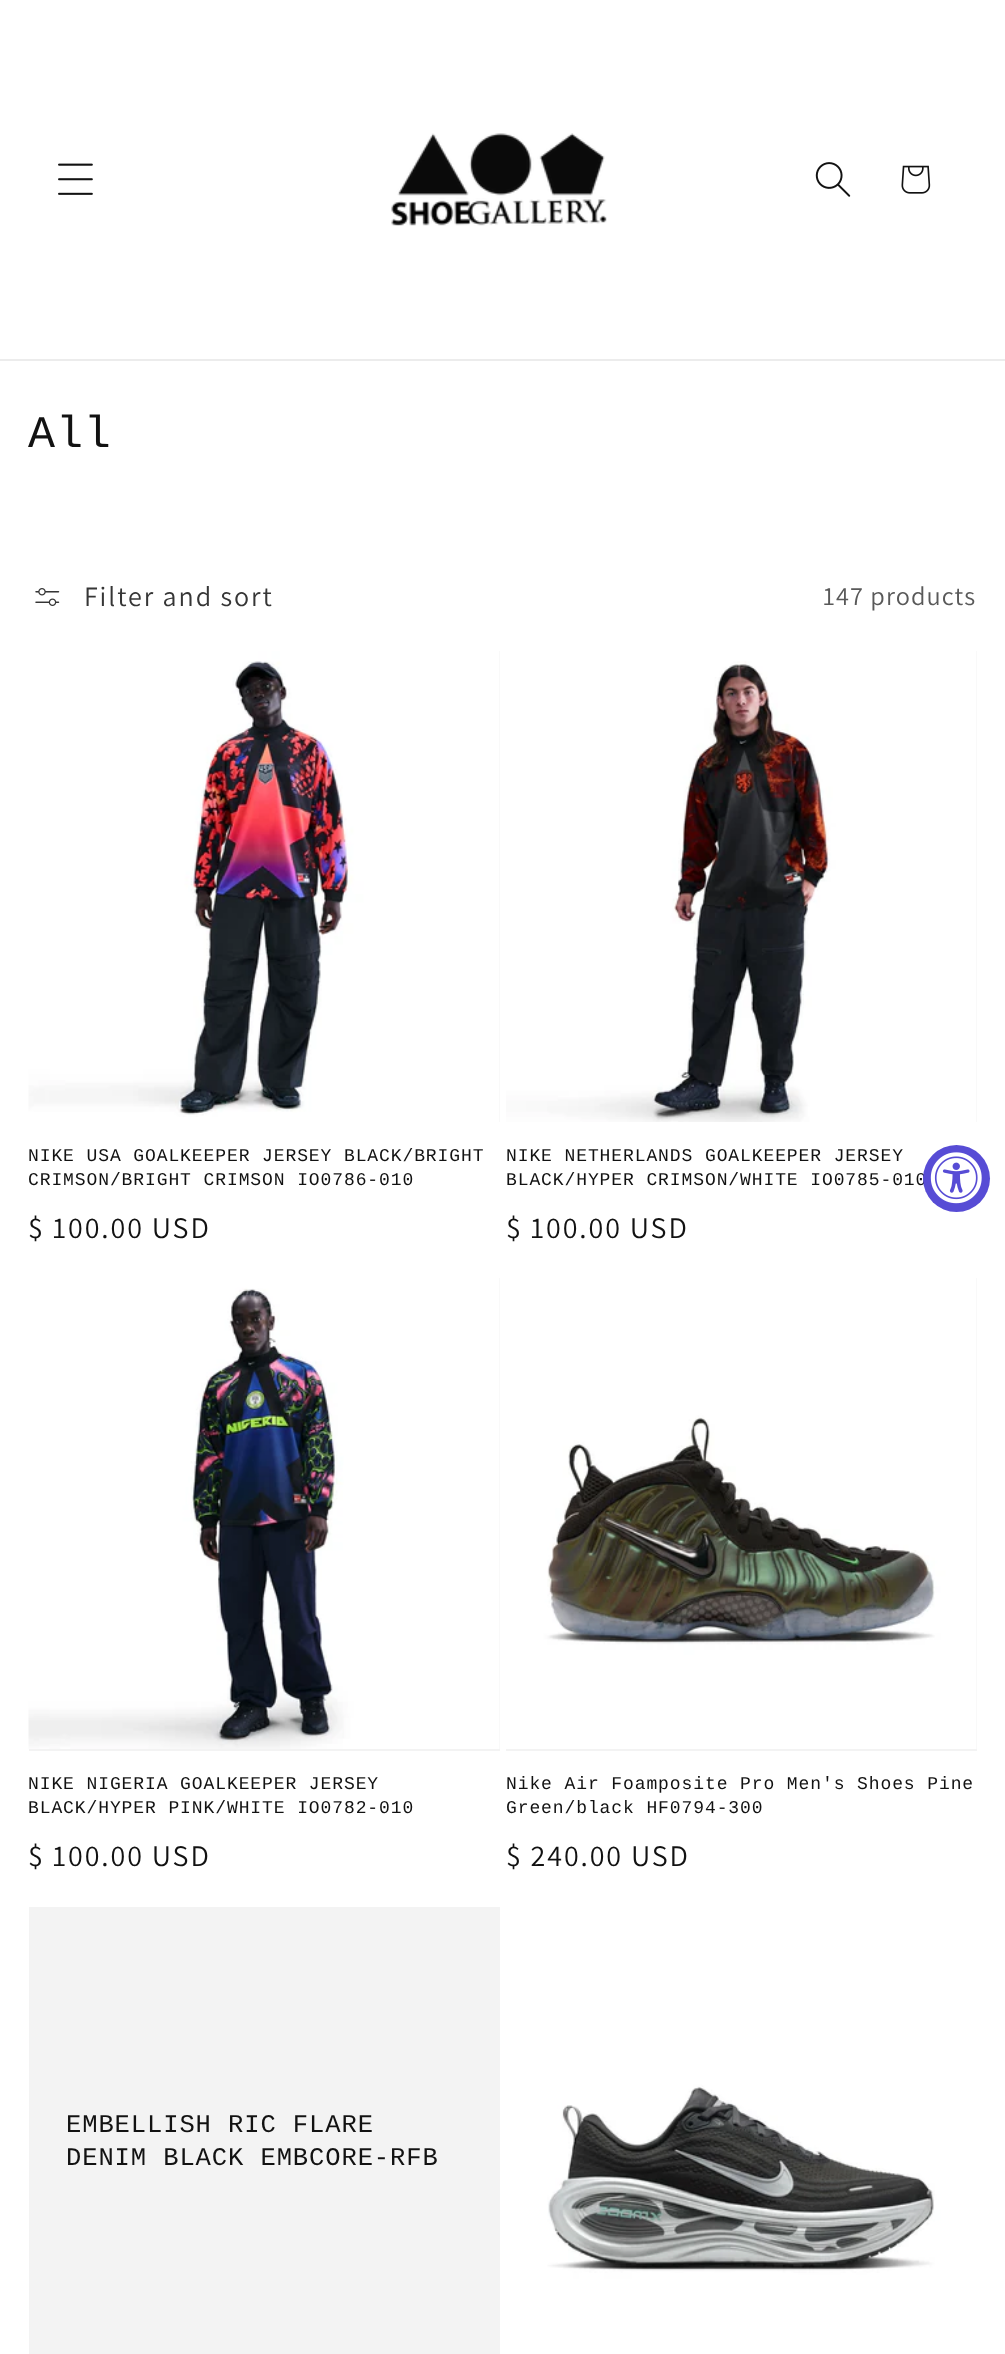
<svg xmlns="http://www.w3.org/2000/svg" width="1005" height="2354">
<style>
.a{font:45px Liberation Mono;letter-spacing:0.9px;fill:#121212}
.b{font:28px Assistant;letter-spacing:1.9px;fill:#363636}
.c{font:26.25px Assistant;letter-spacing:1.1px;fill:#595959}
.d{font:18px Liberation Mono;letter-spacing:0.9px;fill:#121212}
.e{font:30px Assistant;letter-spacing:1.9px;fill:#121212}
.f{font:25.5px Liberation Mono;letter-spacing:0.9px;fill:#121212}
</style>
<rect width="100%" height="100%" fill="#fff"/>
<path fill="#ececec" d="M0 359h1005v2H0z"/>
<image href="1.png" x="58" y="163" width="35" height="32"/>
<image href="2.png" x="391" y="133" width="216" height="93"/>
<image href="3.png" x="815" y="162" width="36" height="35"/>
<image href="4.png" x="901" y="165" width="30" height="29"/>
<image href="5.png" x="35" y="588" width="25" height="18"/>
<path fill="#f3f3f3" d="M499 651h1v471H499z"/>
<image href="6.png" x="28" y="651" width="472" height="471"/>
<path fill="#f3f3f3" d="M976 651h1v471H976z"/>
<image href="7.png" x="506" y="651" width="471" height="471"/>
<path fill="#f3f3f3" d="M29 1278h471v473H29z"/>
<image href="8.png" x="28" y="1278" width="472" height="471"/>
<path fill="#f3f3f3" d="M506 1278h471v473H506z"/>
<image href="9.png" x="506" y="1278" width="471" height="471"/>
<path fill="#f3f3f3" d="M29 1907h471v447H29z"/>
<image href="10.png" x="506" y="1907" width="471" height="447"/>
<text class="a" x="28" y="447">All</text>
<text class="b" x="84" y="606">Filter and sort</text>
<text class="c" x="823" y="605">147 products</text>
<text class="d" x="28" y="1161">NIKE USA GOALKEEPER JERSEY BLACK/BRIGHT</text>
<text class="d" x="28" y="1185">CRIMSON/BRIGHT CRIMSON IO0786-010</text>
<text class="e" x="28" y="1238">$ 100.00 USD</text>
<text class="d" x="506" y="1161">NIKE NETHERLANDS GOALKEEPER JERSEY</text>
<text class="d" x="506" y="1185">BLACK/HYPER CRIMSON/WHITE IO0785-010</text>
<text class="e" x="506" y="1238">$ 100.00 USD</text>
<text class="d" x="28" y="1789">NIKE NIGERIA GOALKEEPER JERSEY</text>
<text class="d" x="28" y="1813">BLACK/HYPER PINK/WHITE IO0782-010</text>
<text class="e" x="28" y="1866">$ 100.00 USD</text>
<text class="d" x="506" y="1789">Nike Air Foamposite Pro Men's Shoes Pine</text>
<text class="d" x="506" y="1813">Green/black HF0794-300</text>
<text class="e" x="506" y="1866">$ 240.00 USD</text>
<text class="f" x="66" y="2132">EMBELLISH RIC FLARE</text>
<text class="f" x="66" y="2165">DENIM BLACK EMBCORE-RFB</text>
<circle fill="#574cd5" cx="956.5" cy="1178.5" r="33.5"/>
<image href="11.png" x="930" y="1152" width="52" height="52"/>
</svg>
